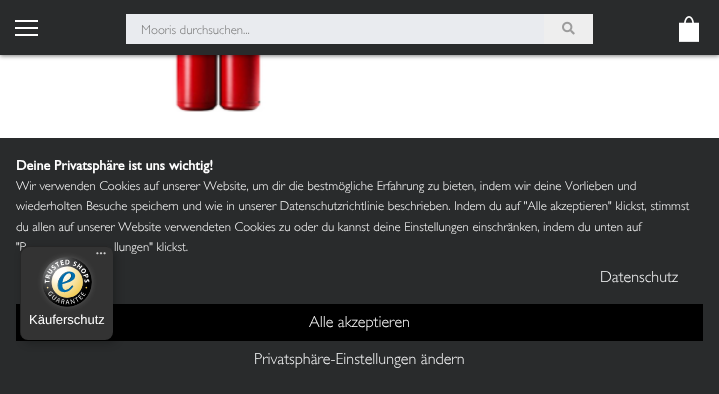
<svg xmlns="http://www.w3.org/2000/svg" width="719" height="394">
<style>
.a{font:300 12.8px Gill Sans;fill:#757575}
.b{font:bold 14.1px Gill Sans;fill:#fff}
.c{font:300 12.8px Gill Sans;fill:#fff}
.d{font:300 16px Gill Sans;fill:#f8f9fa}
.e{font:300 16px Gill Sans;fill:#fff}
.f{font:13px Liberation Sans;fill:#fff}
</style>
<rect width="100%" height="100%" fill="#fff"/>
<image href="3.png" x="137" y="55" width="164" height="57"/>
<path fill="#00000080" filter="blur(2px)" d="M0 1h719v55H0z"/>
<path fill="#292b2c" d="M0 0h719v55H0z"/>
<path fill="#fff" d="M15 27h23v2H15z"/>
<path fill="#fff" d="M15 20h23v2H15z"/>
<path fill="#fff" d="M15 34h23v2H15z"/>
<path fill="#e9ebef" d="M126 14h467v30H126z"/>
<path fill="#eee" d="M544 14h47c1 0 2 1 2 2v26c0 1-1 2-2 2h-47z"/>
<image href="1.png" x="562" y="21" width="13" height="14"/>
<image href="2.png" x="679" y="16" width="20" height="26"/>
<path fill="#292b2c" d="M0 138h719v256H0z"/>
<path fill="#000" d="M16 304h687v37H16z"/>
<rect fill="#00000040" filter="blur(4px)" x="23" y="249" width="93" height="94" rx="8"/>
<text class="a" x="141" y="34">Mooris durchsuchen...</text>
<text class="b" x="16" y="170">Deine Privatsphäre ist uns wichtig!</text>
<text class="c" x="16" y="190">Wir verwenden Cookies auf unserer Website, um dir die bestmögliche Erfahrung zu bieten, indem wir deine Vorlieben und</text>
<text class="c" x="16" y="210">wiederholten Besuche speichern und wie in unserer Datenschutzrichtlinie beschrieben. Indem du auf "Alle akzeptieren" klickst, stimmst</text>
<text class="c" x="16" y="231">du allen auf unserer Website verwendeten Cookies zu oder du kannst deine Einstellungen einschränken, indem du unten auf</text>
<text class="c" x="16" y="251">"P</text>
<text class="c" x="114" y="251">llungen" klickst.</text>
<text class="d" x="600" y="282">Datenschutz</text>
<text class="e" x="309" y="327">Alle akzeptieren</text>
<text class="d" x="254" y="364">Privatsphäre-Einstellungen ändern</text>
<rect fill="#333" x="20" y="246" width="93" height="94" rx="8"/>
<path fill="#00000040" d="M29 247h77c2 0 4 1 6 3c-2-2-4-4-7-4h-77c-4 0-8 4-8 8v78c0 3 2 5 4 7c-2-2-3-4-3-6v-78c0-4 4-8 8-8z"/>
<rect fill="#ffffffbf" filter="blur(5px)" x="47" y="262" width="40" height="40" rx="20"/>
<image href="4.png" x="96" y="252" width="10" height="3"/>
<image href="5.png" x="42" y="257" width="50" height="50"/>
<text class="f" x="29" y="324">Käuferschutz</text>
</svg>
